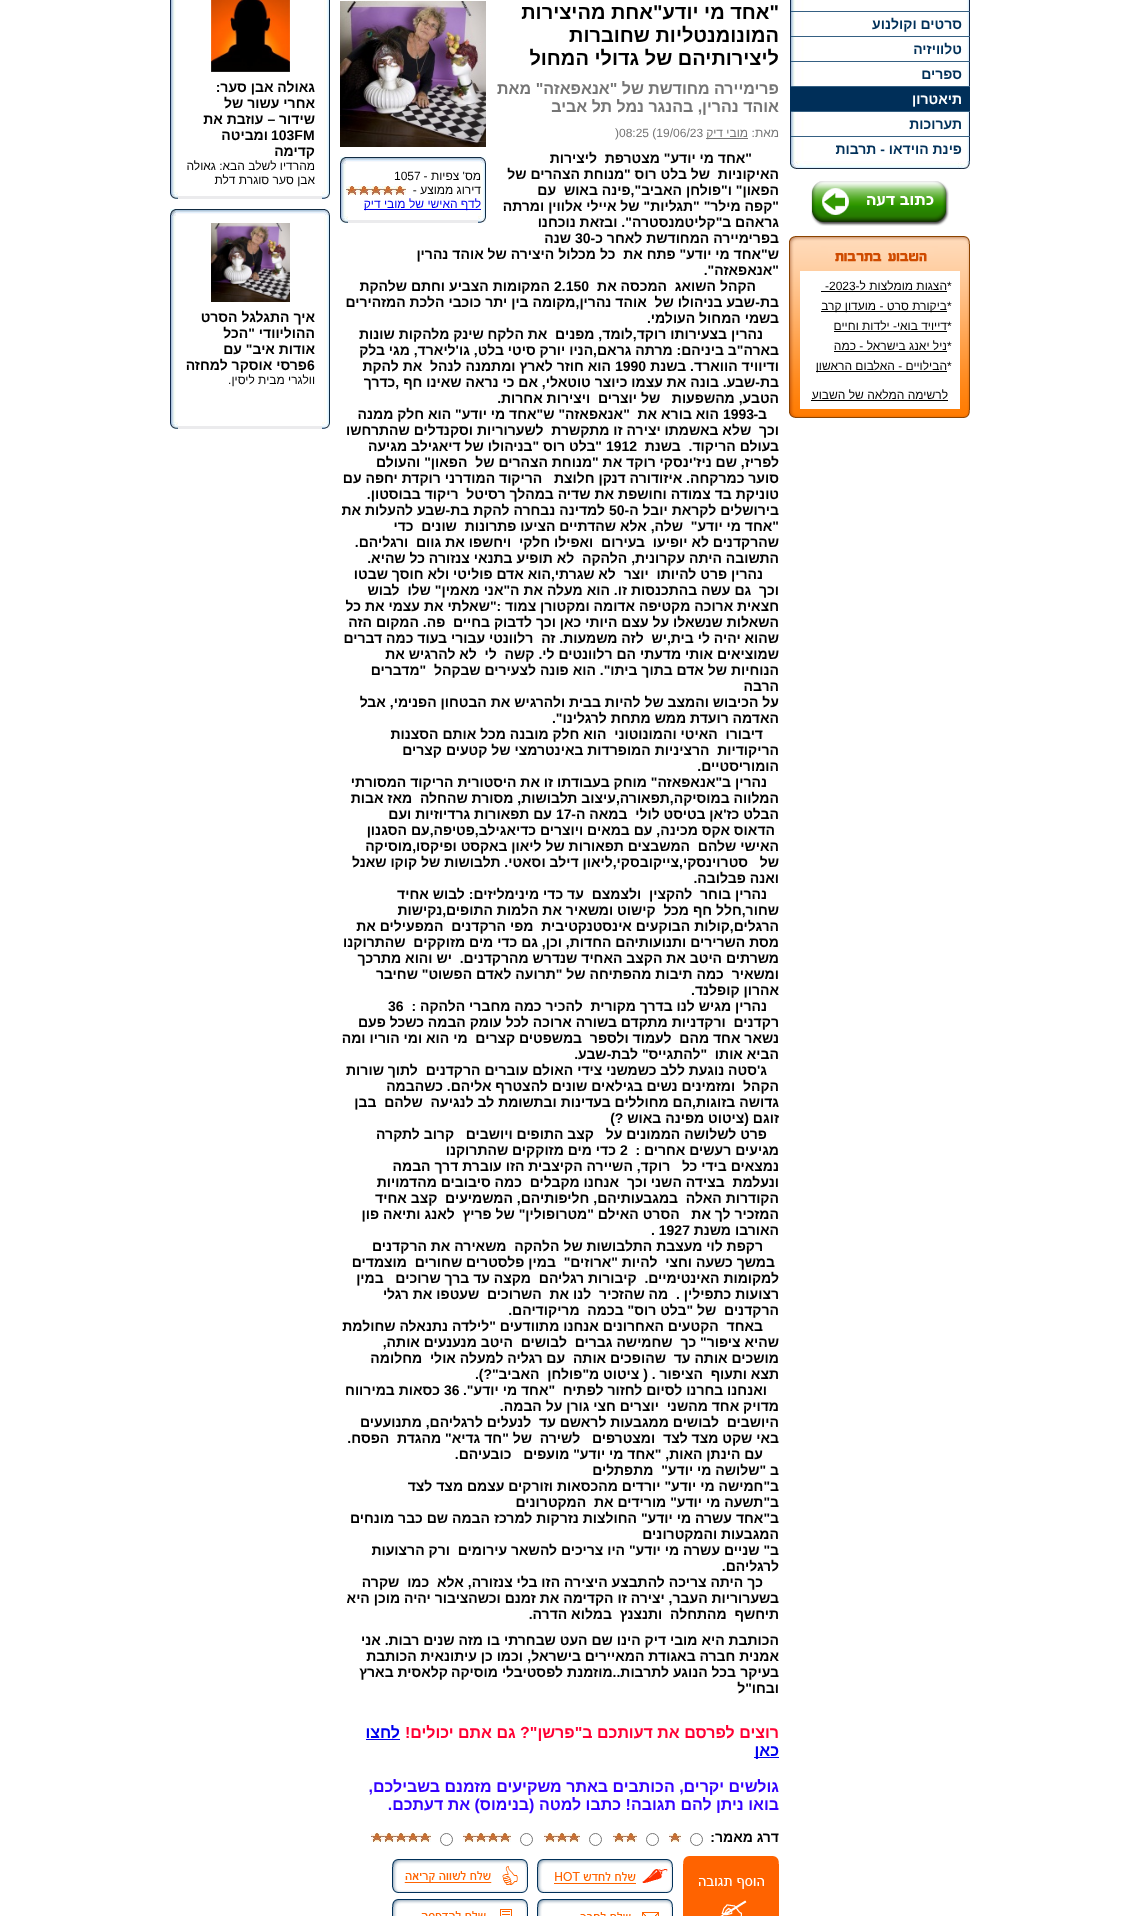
<svg xmlns="http://www.w3.org/2000/svg" width="1140" height="1916">
<style>
.a{font:bold 14px Liberation Sans;direction:rtl;fill:#003059}
.b{font:bold 14px Liberation Sans;direction:rtl;fill:#fff}
.c{font:12px Liberation Sans;fill:#000}
.d{font:12px Liberation Sans;direction:rtl;fill:#000}
.e{font:bold 20px Liberation Sans;direction:rtl;fill:#000}
.f{font:bold 16px Liberation Sans;direction:rtl;fill:#757575}
.g{font:12px Liberation Sans;direction:rtl;fill:#757575}
.h{font:12px Liberation Sans;fill:#757575}
.i{font:bold 14px Liberation Sans;direction:rtl;fill:#000}
.j{font:bold 14px Liberation Sans;fill:#000}
.k{font:12px Liberation Sans;direction:rtl;fill:#00e}
.l{font:bold 16px Liberation Sans;direction:rtl;fill:#f03}
.m{font:bold 16px Liberation Sans;direction:rtl;fill:#00e}
.n{font:bold 16px Liberation Sans;direction:rtl;fill:#30f}
</style>
<rect width="100%" height="100%" fill="#fff"/>
<image href="1.png" x="790" y="0" width="180" height="11"/>
<image href="2.png" x="790" y="11" width="180" height="1"/>
<image href="3.png" x="790" y="12" width="180" height="24"/>
<image href="2.png" x="790" y="36" width="180" height="1"/>
<image href="3.png" x="790" y="37" width="180" height="24"/>
<image href="2.png" x="790" y="61" width="180" height="1"/>
<image href="3.png" x="790" y="62" width="180" height="24"/>
<image href="2.png" x="790" y="86" width="180" height="1"/>
<path fill="#002f59" d="M790 87h180v24H790z"/>
<image href="2.png" x="790" y="111" width="180" height="1"/>
<image href="3.png" x="790" y="112" width="180" height="24"/>
<image href="2.png" x="790" y="136" width="180" height="1"/>
<image href="3.png" x="790" y="137" width="180" height="24"/>
<image href="4.png" x="790" y="161" width="180" height="8"/>
<image href="5.png" x="811" y="181" width="138" height="45"/>
<image href="6.png" x="789" y="236" width="181" height="182"/>
<path fill="#000" d="M821 291h126v1H821z"/>
<path fill="#000" d="M821 311h126v1H821z"/>
<path fill="#000" d="M834 331h113v1H834z"/>
<path fill="#000" d="M834 351h113v1H834z"/>
<path fill="#000" d="M816 371h131v1H816z"/>
<path fill="#000" d="M811 400h137v1H811z"/>
<path fill="#757575" d="M706 138h42v1H706z"/>
<image href="7.png" x="340" y="1" width="146" height="146"/>
<image href="8.png" x="480" y="157" width="6" height="7"/>
<image href="9.png" x="346" y="157" width="134" height="5"/>
<image href="10.png" x="340" y="157" width="6" height="7"/>
<image href="11.png" x="480" y="164" width="6" height="52"/>
<image href="12.png" x="340" y="164" width="6" height="52"/>
<image href="13.png" x="400" y="186" width="6" height="9"/>
<image href="14.png" x="394" y="186" width="6" height="9"/>
<image href="13.png" x="388" y="186" width="6" height="9"/>
<image href="14.png" x="382" y="186" width="6" height="9"/>
<image href="13.png" x="376" y="186" width="6" height="9"/>
<image href="14.png" x="370" y="186" width="6" height="9"/>
<image href="13.png" x="364" y="186" width="6" height="9"/>
<image href="14.png" x="358" y="186" width="6" height="9"/>
<image href="13.png" x="352" y="186" width="6" height="9"/>
<image href="14.png" x="346" y="186" width="6" height="9"/>
<path fill="#00e" d="M364 209h117v1H364z"/>
<image href="15.png" x="478" y="216" width="8" height="7"/>
<path fill="#ebebed" d="M348 220h130v3H348z"/>
<image href="16.png" x="340" y="216" width="8" height="7"/>
<path fill="#00e" d="M366 1739h34v1H366z"/>
<path fill="#00e" d="M754 1757h25v1H754z"/>
<circle fill="none" stroke="#767676" cx="696.5" cy="1839.5" r="6"/>
<image href="17.png" x="669" y="1833" width="12" height="9"/>
<circle fill="none" stroke="#767676" cx="652.5" cy="1839.5" r="6"/>
<image href="17.png" x="625" y="1833" width="12" height="9"/>
<image href="17.png" x="613" y="1833" width="12" height="9"/>
<circle fill="none" stroke="#767676" cx="595.5" cy="1839.5" r="6"/>
<image href="17.png" x="568" y="1833" width="12" height="9"/>
<image href="17.png" x="556" y="1833" width="12" height="9"/>
<image href="17.png" x="544" y="1833" width="12" height="9"/>
<circle fill="none" stroke="#767676" cx="526.5" cy="1839.5" r="6"/>
<image href="17.png" x="499" y="1833" width="12" height="9"/>
<image href="17.png" x="487" y="1833" width="12" height="9"/>
<image href="17.png" x="475" y="1833" width="12" height="9"/>
<image href="17.png" x="463" y="1833" width="12" height="9"/>
<circle fill="none" stroke="#767676" cx="446.5" cy="1839.5" r="6"/>
<image href="17.png" x="419" y="1833" width="12" height="9"/>
<image href="17.png" x="407" y="1833" width="12" height="9"/>
<image href="17.png" x="395" y="1833" width="12" height="9"/>
<image href="17.png" x="383" y="1833" width="12" height="9"/>
<image href="17.png" x="371" y="1833" width="12" height="9"/>
<image href="18.png" x="683" y="1856" width="96" height="60"/>
<image href="19.png" x="537" y="1859" width="136" height="34"/>
<image href="20.png" x="392" y="1859" width="136" height="34"/>
<image href="21.png" x="537" y="1899" width="136" height="17"/>
<image href="22.png" x="392" y="1899" width="136" height="17"/>
<image href="23.png" x="324" y="0" width="6" height="192"/>
<image href="24.png" x="170" y="0" width="6" height="192"/>
<image href="25.png" x="211" y="0" width="79" height="72"/>
<image href="15.png" x="322" y="192" width="8" height="7"/>
<path fill="#ebebed" d="M178 196h144v3H178z"/>
<image href="16.png" x="170" y="192" width="8" height="7"/>
<image href="8.png" x="324" y="209" width="6" height="7"/>
<image href="26.png" x="176" y="209" width="148" height="5"/>
<image href="10.png" x="170" y="209" width="6" height="7"/>
<image href="27.png" x="324" y="216" width="6" height="206"/>
<image href="28.png" x="170" y="216" width="6" height="206"/>
<image href="29.png" x="211" y="223" width="79" height="79"/>
<image href="15.png" x="322" y="422" width="8" height="7"/>
<path fill="#ebebed" d="M178 426h144v3H178z"/>
<image href="16.png" x="170" y="422" width="8" height="7"/>
<text class="a" x="962" y="29">סרטים וקולנוע</text>
<text class="a" x="962" y="54">טלוויזיה</text>
<text class="a" x="962" y="79">ספרים</text>
<text class="b" x="962" y="104">תיאטרון</text>
<text class="a" x="962" y="129">תערוכות</text>
<text class="a" x="962" y="154">פינת הוידאו - תרבות</text>
<text class="c" x="947" y="290">*</text>
<text class="d" x="947" y="290">הצגות מומלצות ל-</text>
<text class="c" x="825" y="290">-2023</text>
<text class="c" x="947" y="310">*</text>
<text class="d" x="947" y="310">ביקורת סרט - מועדון קרב</text>
<text class="c" x="947" y="330">*</text>
<text class="d" x="947" y="330">דייויד בואי- ילדות וחיים</text>
<text class="c" x="947" y="350">*</text>
<text class="d" x="947" y="350">ניל יאנג בישראל - כמה</text>
<text class="c" x="947" y="370">*</text>
<text class="d" x="947" y="370">הבילויים - האלבום הראשון</text>
<text class="d" x="948" y="399">לרשימה המלאה של השבוע</text>
<text class="e" x="779" y="19">"אחד מי יודע"אחת מהיצירות</text>
<text class="e" x="779" y="42">המונומנטליות שחוברות</text>
<text class="e" x="779" y="65">ליצירותיהם של גדולי המחול</text>
<text class="f" x="779" y="94">פרימיירה מחודשת של "אנאפאזה"</text>
<text class="f" x="531" y="94">מאת</text>
<text class="f" x="779" y="112">אוהד נהרין, בהנגר נמל</text>
<text class="f" x="612" y="112">תל אביב</text>
<text class="g" x="779" y="137">מאת:</text>
<text class="g" x="748" y="137">מובי דיק</text>
<text class="h" x="615" y="137">)08:25 (19/06/23</text>
<text class="i" xml:space="preserve" x="752" y="163">"אחד מי יודע" מצטרפת  ליצירות</text>
<text class="i" xml:space="preserve" x="779" y="179">האיקוניות  של בלט רוס "מנוחת הצהרים של</text>
<text class="i" xml:space="preserve" x="779" y="195">הפאון" ו"פולחן האביב",פינה באוש  עם</text>
<text class="i" x="779" y="211">"קפה מילר" "תגליות" של איילי אלווין ומרתה</text>
<text class="i" x="779" y="227">גראהם ב"קליטמנסטרה". ובזאת נוכחנו</text>
<text class="i" x="779" y="243">בפרימיירה המחודשת לאחר כ-</text>
<text class="j" x="575" y="243">30</text>
<text class="i" x="571" y="243">שנה</text>
<text class="i" xml:space="preserve" x="779" y="259">ש"אחד מי יודע" פתח את  כל מכלול היצירה של אוהד נהרין</text>
<text class="i" x="779" y="275">"אנאפאזה".</text>
<text class="i" xml:space="preserve" x="756" y="291">הקהל השואג  המכסה את</text>
<text class="j" x="554" y="291">2.150</text>
<text class="i" x="550" y="291">המקומות הצביע וחתם שלהקת</text>
<text class="i" x="779" y="307">בת-</text>
<text class="i" xml:space="preserve" x="755" y="307">שבע בניהולו של  אוהד נהרין,מקומה בין יתר כוכבי הלכת המזהירים</text>
<text class="i" x="779" y="323">בשמי המחול העולמי.</text>
<text class="i" xml:space="preserve" x="763" y="339">נהרין בצעירותו רוקד,לומד, מפנים  את הלקח שינק מלהקות שונות</text>
<text class="i" x="779" y="355">בארה"ב ביניהם: מרתה גראם,הניו יורק סיטי בלט, גו'ליארד, מגי בלק</text>
<text class="i" x="779" y="371">ודיוויד הווארד. בשנת</text>
<text class="j" x="615" y="371">1990</text>
<text class="i" xml:space="preserve" x="611" y="371">הוא חוזר לארץ ומתמנה לנהל  את להקת</text>
<text class="i" x="779" y="387">בת-שבע. בונה את עצמו כיוצר טוטאלי, אם כי נראה שאינו חף ,כדרך</text>
<text class="i" xml:space="preserve" x="779" y="403">הטבע, מהשפעות   של יוצרים  ויצירות אחרות.</text>
<text class="i" x="767" y="419">ב-</text>
<text class="j" x="723" y="419">1993</text>
<text class="i" xml:space="preserve" x="719" y="419">הוא בורא את  "אנאפאזה" ש"אחד מי יודע" הוא חלק ממנה</text>
<text class="i" xml:space="preserve" x="779" y="435">וכך  שלא באשמתו יצירה זו מתקשרת  לשערוריות וסקנדלים שהתרחשו</text>
<text class="i" xml:space="preserve" x="779" y="451">בעולם הריקוד.  בשנת</text>
<text class="j" x="606" y="451">1912</text>
<text class="i" x="602" y="451">"בלט רוס "בניהולו של דיאגילב מגיעה</text>
<text class="i" xml:space="preserve" x="779" y="467">לפריז, שם ניז'ינסקי רוקד את "מנוחת הצהרים של  הפאון" והעולם</text>
<text class="i" xml:space="preserve" x="779" y="483">סוער כמרקחה. איזודורה דנקן חלוצת   הריקוד המודרני רוקדת יחפה עם</text>
<text class="i" x="779" y="499">טוניקת בד צמודה וחושפת</text>
<text class="i" xml:space="preserve" x="614" y="499">את שדיה במהלך רסיטל  ריקוד בבוסטון.</text>
<text class="i" x="779" y="515">בירושלים לקראת יובל ה-</text>
<text class="j" x="609" y="515">50</text>
<text class="i" x="605" y="515">למדינה נבחרה להקת בת-שבע להעלות את</text>
<text class="i" xml:space="preserve" x="779" y="531">"אחד מי יודע"  שלה, אלא שהדתיים הציעו פתרונות  שונים  כדי</text>
<text class="i" xml:space="preserve" x="779" y="547">שהרקדנים לא יופיעו  בעירום  ואפילו חלקי  ויחשפו את גוום  ורגליהם.</text>
<text class="i" xml:space="preserve" x="779" y="563">התשובה היתה עקרונית, הלהקה  לא תופיע בתנאי צנזורה כל שהיא.</text>
<text class="i" xml:space="preserve" x="763" y="579">נהרין פרט להיותו  יוצר  לא שגרתי,הוא אדם פוליטי ולא חוסך שבטו</text>
<text class="i" xml:space="preserve" x="779" y="595">וכך  גם עשה בהתכנסות זו. הוא מעלה את ה"אני מאמין" שלו  לבוש</text>
<text class="i" x="779" y="611">חצאית ארוכה מקטיפה אדומה ומקטורן צמוד :"שאלתי את עצמי את כל</text>
<text class="i" xml:space="preserve" x="779" y="627">השאלות שנשאלו על עצם היותי כאן וכך לדבוק בחיים  פה. המקום הזה</text>
<text class="i" xml:space="preserve" x="779" y="643">שהוא יהיה לי בית,יש  לזה משמעות. זה  רלוונטי עבורי בעוד כמה דברים</text>
<text class="i" xml:space="preserve" x="779" y="659">שמוציאים אותי מדעתי הם רלוונטים לי. קשה  לי  לא להרגיש את</text>
<text class="i" xml:space="preserve" x="779" y="675">הנוחיות של אדם בתוך ביתו". הוא פונה לצעירים שבקהל  "מדברים</text>
<text class="i" x="779" y="691">הרבה</text>
<text class="i" x="779" y="707">על הכיבוש והמצב של להיות בבית ולהרגיש את הבטחון הפנימי, אבל</text>
<text class="i" x="779" y="723">האדמה רועדת ממש מתחת לרגלינו".</text>
<text class="i" xml:space="preserve" x="763" y="739">דיבורו  האיטי והמונוטוני  הוא חלק מובנה מכל אותם הסצנות</text>
<text class="i" xml:space="preserve" x="779" y="755">הריקודיות  הרציניות המופרדות באינטרמצי של קטעים קצרים</text>
<text class="i" x="779" y="771">הומוריסטיים.</text>
<text class="i" x="767" y="787">נהרין ב"אנאפאזה" מוחק בעבודתו זו את היסטורית הריקוד המסורתי</text>
<text class="i" xml:space="preserve" x="779" y="803">המלווה במוסיקה,תפאורה,עיצוב תלבושות, מסורת שהחלה  מאז אבות</text>
<text class="i" xml:space="preserve" x="779" y="819">הבלט כז'אן בטיסט לולי  במאה ה-</text>
<text class="j" x="556" y="819">17</text>
<text class="i" x="552" y="819">עם תפאורות גרדיוזיות ועם</text>
<text class="i" x="775" y="835">הדאוס אקס מכינה, עם במאים ויוצרים כדיאגילב,פטיפה,עם הסגנון</text>
<text class="i" xml:space="preserve" x="779" y="851">האישי שלהם  המשבצים תפאורות של ליאון באקסט ופיקסו,מוסיקה</text>
<text class="i" xml:space="preserve" x="779" y="867">של   סטרוינסקי,צייקובסקי,ליאון דילב וסאטי. תלבושות של קוקו שאנל</text>
<text class="i" x="779" y="883">ואנה פבלובה.</text>
<text class="i" xml:space="preserve" x="767" y="899">נהרין בוחר  להקצין  ולצמצם  עד כדי מינימליזים: לבוש אחיד</text>
<text class="i" xml:space="preserve" x="779" y="915">שחור,חלל חף מכל  קישוט ומשאיר את הלמות התופים,נקישות</text>
<text class="i" xml:space="preserve" x="779" y="931">הרגלים,קולות הבוקעים אינסטנקטיבית  מפי הרקדנים  המפעילים את</text>
<text class="i" xml:space="preserve" x="779" y="947">מסת השרירים ותנועותיהם החדות, וכן, גם כדי מים מזוקקים  שהתרוקנו</text>
<text class="i" xml:space="preserve" x="779" y="963">משרתים היטב את הקצב האחיד שנדרש מהרקדנים.  יש והוא מתרכך</text>
<text class="i" xml:space="preserve" x="779" y="979">ומשאיר  כמה תיבות מהפתיחה של "תרועה לאדם הפשוט" שחיבר</text>
<text class="i" x="779" y="995">אהרון קופלנד.</text>
<text class="i" xml:space="preserve" x="767" y="1011">נהרין מגיש לנו בדרך מקורית  להכיר כמה מחברי הלהקה :</text>
<text class="j" x="388" y="1011">36</text>
<text class="i" xml:space="preserve" x="779" y="1027">רקדנים  ורקדניות מתקדם בשורה ארוכה לכל עומק הבמה כשכל פעם</text>
<text class="i" xml:space="preserve" x="779" y="1043">נשאר אחד מהם  לעמוד ולספר  במשפטים קצרים  מי הוא ומי הוריו ומה</text>
<text class="i" xml:space="preserve" x="779" y="1059">הביא אותו  "להתגייס" לבת-שבע.</text>
<text class="i" xml:space="preserve" x="767" y="1075">ג'סטה נוגעת ללב כשמשני צידי האולם עוברים הרקדנים  לתוך שורות</text>
<text class="i" xml:space="preserve" x="779" y="1091">הקהל  ומזמינים נשים בגילאים שונים להצטרף אליהם. כשהבמה</text>
<text class="i" xml:space="preserve" x="779" y="1107">גדושה בזוגות,הם מחוללים בעדינות ובתשומת לב לנגיעה  שלהם  בבן</text>
<text class="i" x="779" y="1123">זוגם (ציטוט מפינה באוש ?)</text>
<text class="i" xml:space="preserve" x="767" y="1139">פרט לשלושה הממונים על   קצב התופים ויושבים   קרוב לתקרה</text>
<text class="i" x="779" y="1155">מגיעים רעשים אחרים :</text>
<text class="j" x="620" y="1155">2</text>
<text class="i" x="616" y="1155">כדי מים מזוקקים שהתרוקנו</text>
<text class="i" xml:space="preserve" x="779" y="1171">נמצאים בידי כל   רוקד, השיירה הקיצבית הזו עוברת דרך הבמה</text>
<text class="i" xml:space="preserve" x="779" y="1187">ונעלמת  בצידה השני וכך  אנחנו מקבלים  כמה סיבובים מהדמויות</text>
<text class="i" xml:space="preserve" x="779" y="1203">הקודרות האלה  במגבעותיהם, חליפותיהם, המשמיעים  קצב אחיד</text>
<text class="i" xml:space="preserve" x="779" y="1219">המזכיר לך את   הסרט האילם "מטרופולין" של פריץ  לאנג ותיאה פון</text>
<text class="i" x="779" y="1235">האורבו משנת</text>
<text class="j" x="651" y="1235">. 1927</text>
<text class="i" xml:space="preserve" x="763" y="1251">רקפת לוי מעצבת התלבושות של הלהקה  משאירה את הרקדנים</text>
<text class="i" xml:space="preserve" x="775" y="1267">במשך כשעה וחצי  להיות "ארוזים"  במין פלסטרים שחורים  מוצמדים</text>
<text class="i" xml:space="preserve" x="779" y="1283">למקומות האינטימיים.  קיבורות רגליהם  מקצה עד ברך שרוכים   במין</text>
<text class="i" xml:space="preserve" x="779" y="1299">רצועות כתפילין .  מה שהזכיר  לנו את  השרוכים  שעטפו את רגלי</text>
<text class="i" xml:space="preserve" x="779" y="1315">הרקדנים  של "בלט רוס" בכמה  מריקודיהם.</text>
<text class="i" xml:space="preserve" x="763" y="1331">באחד  הקטעים האחרונים אנחנו מתוודעים "לילדה נתנאלה שחולמת</text>
<text class="i" xml:space="preserve" x="779" y="1347">שהיא ציפור" כך  שחמישה גברים  לבושים  היטב מנענעים אותה,</text>
<text class="i" xml:space="preserve" x="779" y="1363">מושכים אותה עד  שהופכים אותה  עם רגליה למעלה אולי  מחלומה</text>
<text class="i" xml:space="preserve" x="779" y="1379">תצא ותעוף  הציפור . ( ציטוט מ"פולחן  האביב"?).</text>
<text class="i" xml:space="preserve" x="767" y="1395">ואנחנו בחרנו לסיום לחזור לפתיח  "אחד מי יודע".</text>
<text class="j" x="444" y="1395">36</text>
<text class="i" x="440" y="1395">כסאות במירווח</text>
<text class="i" xml:space="preserve" x="779" y="1411">מדויק אחד מהשני  יוצרים חצי גורן על הבמה.</text>
<text class="i" xml:space="preserve" x="779" y="1427">היושבים  לבושים ממגבעות לראשם עד  לנעלים לרגליהם, מתנועעים</text>
<text class="i" xml:space="preserve" x="779" y="1443">באי שקט מצד לצד  ומצטרפים   לשירה  של "חד גדיא" מהגדת  הפסח.</text>
<text class="i" xml:space="preserve" x="763" y="1459">עם הינתן האות, "אחד מי יודע" מועפים   כובעיהם.</text>
<text class="i" xml:space="preserve" x="779" y="1475">ב "שלושה מי יודע"  מתפתלים</text>
<text class="i" x="779" y="1491">ב"חמישה מי יודע" יורדים מהכסאות וזורקים עצמם מצד לצד</text>
<text class="i" xml:space="preserve" x="779" y="1507">ב"תשעה מי יודע" מורידים את  המקטרונים</text>
<text class="i" x="779" y="1523">ב"אחד עשרה מי יודע" החולצות נזרקות למרכז הבמה שם כבר מונחים</text>
<text class="i" x="779" y="1539">המגבעות והמקטרונים</text>
<text class="i" xml:space="preserve" x="779" y="1555">ב" שניים עשרה מי יודע" היו צריכים להשאר עירומים  ורק הרצועות</text>
<text class="i" x="779" y="1571">לרגליהם.</text>
<text class="i" xml:space="preserve" x="763" y="1587">כך היתה צריכה להתבצע היצירה הזו בלי צנזורה, אלא  כמו  שקרה</text>
<text class="i" x="779" y="1603">בשערוריות העבר, יצירה זו הקדימה את זמנם וכשהציבור יהיה מוכן היא</text>
<text class="i" xml:space="preserve" x="779" y="1619">תיחשף  מהתחלה  ותנצנץ  במלוא הדרה.</text>
<text class="d" x="481" y="180">מס' צפיות -</text>
<text class="c" x="394" y="180">1057</text>
<text class="d" x="481" y="194">דירוג ממוצע -</text>
<text class="k" x="481" y="208">לדף האישי של מובי דיק</text>
<text class="i" x="779" y="1645">הכותבת היא מובי דיק הינו שם העט שבחרתי בו</text>
<text class="i" x="483" y="1645">מזה שנים רבות. אני</text>
<text class="i" x="779" y="1661">אמנית חברה באגודת המאיירים</text>
<text class="i" x="581" y="1661">בישראל,</text>
<text class="i" x="523" y="1661">וכמו כן</text>
<text class="i" x="477" y="1661">עיתונאית הכותבת</text>
<text class="i" x="779" y="1677">בעיקר</text>
<text class="i" x="736" y="1677">בכל הנוגע</text>
<text class="i" x="669" y="1677">לתרבות..מוזמנת</text>
<text class="i" x="563" y="1677">לפסטיבלי מוסיקה</text>
<text class="i" x="448" y="1677">קלאסית בארץ</text>
<text class="i" x="779" y="1693">ובחו"ל</text>
<text class="l" x="779" y="1738">רוצים לפרסם את דעותכם ב"פרשן"? גם אתם יכולים!</text>
<text class="m" x="400" y="1738">לחצו</text>
<text class="m" x="779" y="1756">כאן</text>
<text class="n" x="779" y="1792">גולשים יקרים, הכותבים באתר משקיעים מזמנם בשבילכם,</text>
<text class="n" x="779" y="1810">בואו ניתן להם תגובה!</text>
<text class="n" x="621" y="1810">כתבו למטה (בנימוס) את דעתכם.</text>
<text class="i" x="779" y="1842">דרג מאמר:</text>
<text class="i" x="315" y="92">גאולה אבן סער:</text>
<text class="i" x="315" y="108">אחרי עשור של</text>
<text class="i" x="315" y="124">שידור – עוזבת את</text>
<text class="j" x="271" y="140">103FM</text>
<text class="i" x="268" y="140">ומביטה</text>
<text class="i" x="315" y="156">קדימה</text>
<text class="d" x="315" y="170">מהרדיו לשלב הבא: גאולה</text>
<text class="d" x="315" y="184">אבן סער סוגרת דלת</text>
<text class="i" x="315" y="322">איך התגלגל הסרט</text>
<text class="i" x="315" y="338">ההוליוודי "הכל</text>
<text class="i" x="315" y="354">אודות איב" עם</text>
<text class="j" x="307" y="370">6</text>
<text class="i" x="307" y="370">פרסי אוסקר למחזה</text>
<text class="d" x="315" y="384">וולגרי מבית ליסין.</text>
</svg>
